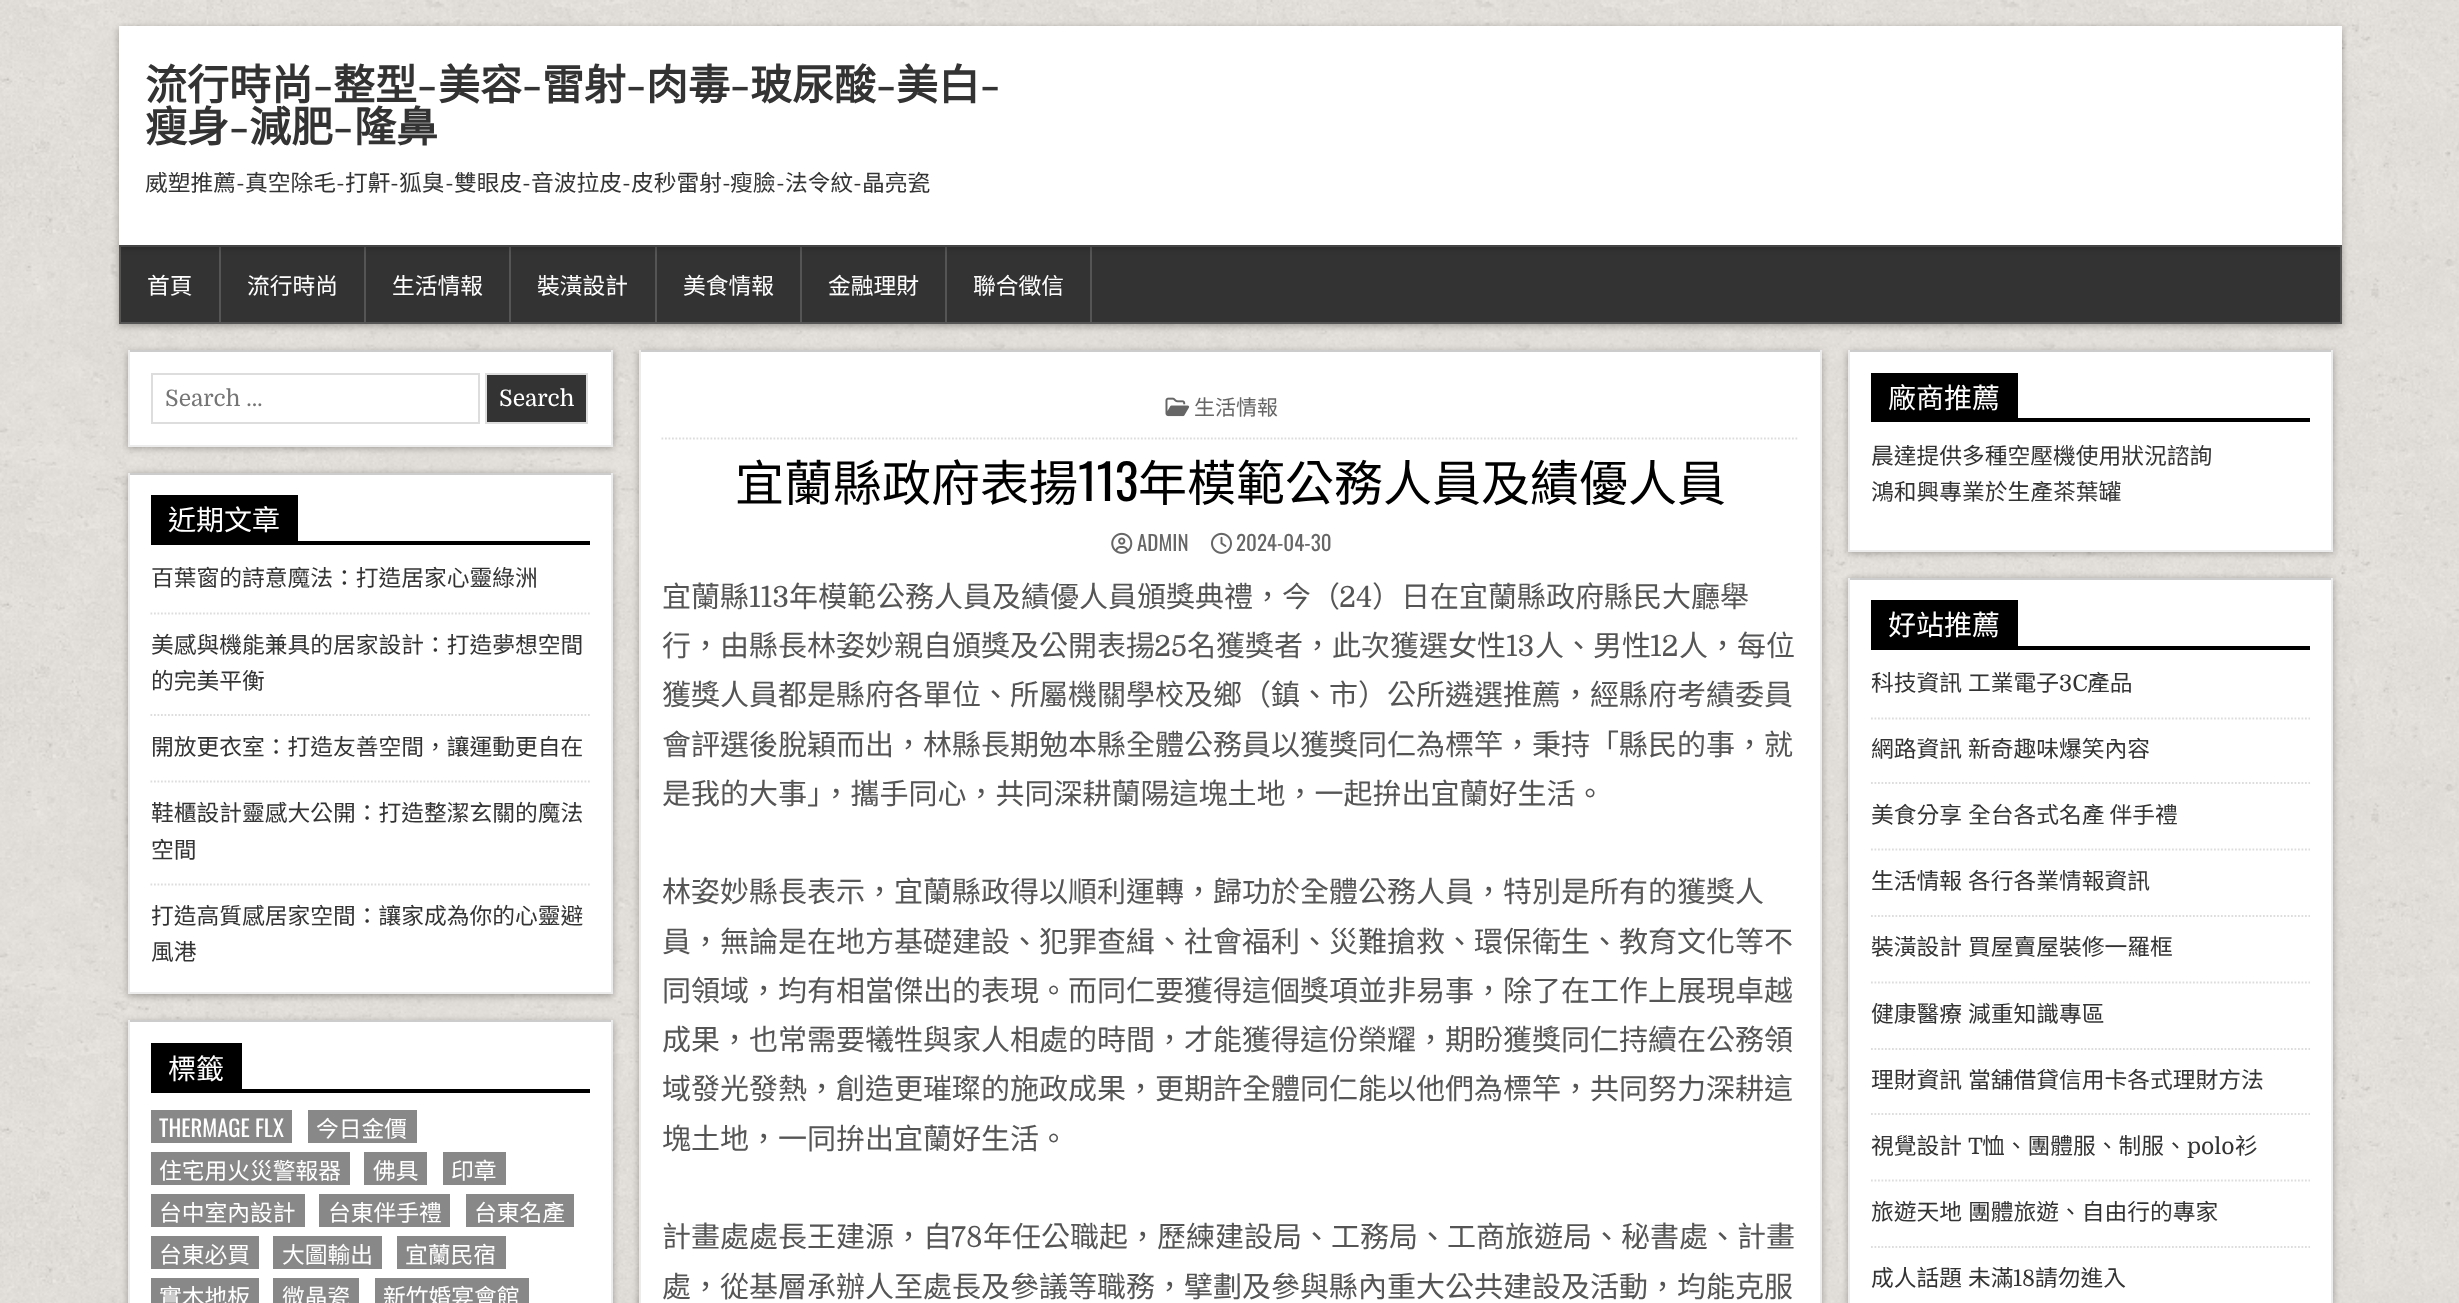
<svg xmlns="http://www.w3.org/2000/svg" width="2459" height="1303">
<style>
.a{font:bold 42px Noto Sans CJK TC;fill:#333}
.b{font:bold 42px Playfair Display;fill:#333}
.c{font:22.75px Noto Sans CJK TC;fill:#333}
.d{font:22.75px Domine;fill:#333}
.e{font:22.75px Noto Sans CJK TC;fill:#fff}
.f{font:22.75px Domine;fill:#757575}
.g{font:22.75px Domine;fill:#fff}
.h{font:28px Noto Sans CJK TC;fill:#fff}
.i{font:22.75px Oswald;fill:#fff}
.j{font:21px Noto Sans CJK TC;fill:#666}
.k{font:49px Noto Sans CJK TC;fill:#000}
.l{font:49px Oswald;fill:#000}
.m{font:21px Oswald;fill:#666}
.n{font:29px Noto Sans CJK TC;fill:#555}
.o{font:29px Domine;fill:#555}
</style>
<rect width="100%" height="100%" fill="#fff"/>
<image href="1.png" x="0" y="0" width="2459" height="1303"/>
<path fill="#0000004d" filter="blur(3.5px)" d="M119 247h2223v79H119z"/>
<path fill="#333" stroke="#555" stroke-width="2" d="M120 246h2221v77H120z"/>
<path fill="#555" d="M219 247h2v75H219z"/>
<path fill="#555" d="M364 247h2v75H364z"/>
<path fill="#555" d="M509 247h2v75H509z"/>
<path fill="#555" d="M655 247h2v75H655z"/>
<path fill="#555" d="M800 247h2v75H800z"/>
<path fill="#555" d="M945 247h2v75H945z"/>
<path fill="#555" d="M1090 247h2v75H1090z"/>
<path fill="#0000004d" filter="blur(3.5px)" d="M119 28h2223v219H119z"/>
<path fill="#fff" d="M119 26h2223v219H119z"/>
<path fill="#0000004d" filter="blur(3.5px)" d="M128 352h485v96H128z"/>
<path fill="#fff" d="M130 352h481v93H130z"/>
<path fill="#ccc" d="M128 350h485v2H128z"/>
<path fill="#ececec" d="M611 350h2v96H611z"/>
<path fill="#ececec" d="M128 445h485v2H128z"/>
<path fill="#ececec" d="M128 350h2v96H128z"/>
<path fill="none" stroke="#ddd" stroke-width="2" d="M152 374h327v49H152z"/>
<path fill="#333" stroke="#ddd" stroke-width="2" d="M486 374h101v49H486z"/>
<path fill="#0000004d" filter="blur(3.5px)" d="M128 474h485v522H128z"/>
<path fill="#fff" d="M130 475h481v517H130z"/>
<path fill="#ccc" d="M128 473h485v2H128z"/>
<path fill="#ececec" d="M611 473h2v521H611z"/>
<path fill="#ececec" d="M128 992h485v2H128z"/>
<path fill="#ececec" d="M128 473h2v521H128z"/>
<path fill="#000" d="M151 541h439v4H151z"/>
<path fill="#000" d="M151 495h147v46H151z"/>
<path fill="none" stroke="#ddd" stroke-width="1.8" stroke-dasharray="1.75 1.75" d="M150.5 613.5h439.5"/>
<path fill="none" stroke="#ddd" stroke-width="1.8" stroke-dasharray="1.75 1.75" d="M150.5 715h439.5"/>
<path fill="none" stroke="#ddd" stroke-width="1.8" stroke-dasharray="1.75 1.75" d="M150.5 781.5h439.5"/>
<path fill="none" stroke="#ddd" stroke-width="1.8" stroke-dasharray="1.75 1.75" d="M150.5 884.5h439.5"/>
<path fill="#0000004d" filter="blur(3.5px)" d="M128 1022h485v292H128z"/>
<path fill="#fff" d="M130 1022h481v281H130z"/>
<path fill="#ccc" d="M128 1020h485v2H128z"/>
<path fill="#ececec" d="M611 1020h2v283H611z"/>
<path fill="#ececec" d="M128 1020h2v283H128z"/>
<path fill="#000" d="M151 1089h439v4H151z"/>
<path fill="#000" d="M151 1043h91v46H151z"/>
<path fill="#888" d="M151 1110h141v33H151z"/>
<path fill="#888" d="M308 1110h109v33H308z"/>
<path fill="#888" d="M151 1152h199v33H151z"/>
<path fill="#888" d="M364 1152h63v33H364z"/>
<path fill="#888" d="M443 1152h63v33H443z"/>
<path fill="#888" d="M151 1194h154v33H151z"/>
<path fill="#888" d="M319 1194h131v33H319z"/>
<path fill="#888" d="M466 1194h108v33H466z"/>
<path fill="#888" d="M151 1236h108v33H151z"/>
<path fill="#888" d="M273 1236h109v33H273z"/>
<path fill="#888" d="M397 1236h109v33H397z"/>
<path fill="#888" d="M151 1278h108v25H151z"/>
<path fill="#888" d="M273 1278h86v25H273z"/>
<path fill="#888" d="M375 1278h154v25H375z"/>
<path fill="#0000004d" filter="blur(3.5px)" d="M639 352h1183v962H639z"/>
<path fill="#fff" d="M641 352h1179v951H641z"/>
<path fill="#ccc" d="M639 350h1183v2H639z"/>
<path fill="#ececec" d="M1820 350h2v953H1820z"/>
<path fill="#ececec" d="M639 350h2v953H639z"/>
<path fill="none" stroke="#ddd" stroke-width="1.8" stroke-dasharray="1.75 1.75" d="M661.5 438.5h1137.5"/>
<image href="2.png" x="1165" y="397" width="25" height="20"/>
<image href="3.png" x="1111" y="532" width="22" height="22"/>
<image href="4.png" x="1211" y="532" width="21" height="22"/>
<path fill="#0000004d" filter="blur(3.5px)" d="M1848 352h485v201H1848z"/>
<path fill="#fff" d="M1850 352h481v198H1850z"/>
<path fill="#ccc" d="M1848 350h485v2H1848z"/>
<path fill="#ececec" d="M2331 350h2v201H2331z"/>
<path fill="#ececec" d="M1848 550h485v2H1848z"/>
<path fill="#ececec" d="M1848 350h2v201H1848z"/>
<path fill="#000" d="M1871 418h439v4H1871z"/>
<path fill="#000" d="M1871 373h147v45H1871z"/>
<path fill="#0000004d" filter="blur(3.5px)" d="M1848 579h485v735H1848z"/>
<path fill="#fff" d="M1850 580h481v723H1850z"/>
<path fill="#ccc" d="M1848 578h485v2H1848z"/>
<path fill="#ececec" d="M2331 578h2v725H2331z"/>
<path fill="#ececec" d="M1848 578h2v725H1848z"/>
<path fill="#000" d="M1871 646h439v4H1871z"/>
<path fill="#000" d="M1871 600h147v46H1871z"/>
<path fill="none" stroke="#ddd" stroke-width="1.8" stroke-dasharray="1.75 1.75" d="M1871 718.5h439"/>
<path fill="none" stroke="#ddd" stroke-width="1.8" stroke-dasharray="1.75 1.75" d="M1871 783h439"/>
<path fill="none" stroke="#ddd" stroke-width="1.8" stroke-dasharray="1.75 1.75" d="M1871 849.5h439"/>
<path fill="none" stroke="#ddd" stroke-width="1.8" stroke-dasharray="1.75 1.75" d="M1871 916h439"/>
<path fill="none" stroke="#ddd" stroke-width="1.8" stroke-dasharray="1.75 1.75" d="M1871 982.5h439"/>
<path fill="none" stroke="#ddd" stroke-width="1.8" stroke-dasharray="1.75 1.75" d="M1871 1049h439"/>
<path fill="none" stroke="#ddd" stroke-width="1.8" stroke-dasharray="1.75 1.75" d="M1871 1114h439"/>
<path fill="none" stroke="#ddd" stroke-width="1.8" stroke-dasharray="1.75 1.75" d="M1871 1180.5h439"/>
<path fill="none" stroke="#ddd" stroke-width="1.8" stroke-dasharray="1.75 1.75" d="M1871 1247h439"/>
<text class="a" x="145" y="100">流行時尚</text>
<text class="b" x="313" y="100">-</text>
<text class="a" x="333" y="100">整型</text>
<text class="b" x="417" y="100">-</text>
<text class="a" x="438" y="100">美容</text>
<text class="b" x="522" y="100">-</text>
<text class="a" x="542" y="100">雷射</text>
<text class="b" x="626" y="100">-</text>
<text class="a" x="646" y="100">肉毒</text>
<text class="b" x="730" y="100">-</text>
<text class="a" x="750" y="100">玻尿酸</text>
<text class="b" x="876" y="100">-</text>
<text class="a" x="896" y="100">美白</text>
<text class="b" x="980" y="100">-</text>
<text class="a" x="145" y="142">瘦身</text>
<text class="b" x="229" y="142">-</text>
<text class="a" x="249" y="142">減肥</text>
<text class="b" x="333" y="142">-</text>
<text class="a" x="354" y="142">隆鼻</text>
<text class="c" x="145" y="191">威塑推薦</text>
<text class="d" x="236" y="191">-</text>
<text class="c" x="245" y="191">真空除毛</text>
<text class="d" x="336" y="191">-</text>
<text class="c" x="345" y="191">打鼾</text>
<text class="d" x="390" y="191">-</text>
<text class="c" x="399" y="191">狐臭</text>
<text class="d" x="445" y="191">-</text>
<text class="c" x="454" y="191">雙眼皮</text>
<text class="d" x="522" y="191">-</text>
<text class="c" x="531" y="191">音波拉皮</text>
<text class="d" x="622" y="191">-</text>
<text class="c" x="631" y="191">皮秒雷射</text>
<text class="d" x="722" y="191">-</text>
<text class="c" x="730" y="191">瘦臉</text>
<text class="d" x="776" y="191">-</text>
<text class="c" x="785" y="191">法令紋</text>
<text class="d" x="853" y="191">-</text>
<text class="c" x="862" y="191">晶亮瓷</text>
<text class="e" x="147" y="294">首頁</text>
<text class="e" x="247" y="294">流行時尚</text>
<text class="e" x="392" y="294">生活情報</text>
<text class="e" x="537" y="294">裝潢設計</text>
<text class="e" x="683" y="294">美食情報</text>
<text class="e" x="828" y="294">金融理財</text>
<text class="e" x="973" y="294">聯合徵信</text>
<text class="f" x="165" y="406">Search …</text>
<text class="g" x="499" y="406">Search</text>
<text class="h" x="168" y="530">近期文章</text>
<text class="c" x="151" y="586">百葉窗的詩意魔法：打造居家心靈綠洲</text>
<text class="c" x="151" y="653">美感與機能兼具的居家設計：打造夢想空間</text>
<text class="c" x="151" y="689">的完美平衡</text>
<text class="c" x="151" y="755">開放更衣室：打造友善空間，讓運動更自在</text>
<text class="c" x="151" y="821">鞋櫃設計靈感大公開：打造整潔玄關的魔法</text>
<text class="c" x="151" y="858">空間</text>
<text class="c" x="151" y="924">打造高質感居家空間：讓家成為你的心靈避</text>
<text class="c" x="151" y="960">風港</text>
<text class="h" x="168" y="1079">標籤</text>
<text class="i" x="159" y="1137">THERMAGE FLX</text>
<text class="e" x="316" y="1137">今日金價</text>
<text class="e" x="159" y="1179">住宅用火災警報器</text>
<text class="e" x="373" y="1179">佛具</text>
<text class="e" x="451" y="1179">印章</text>
<text class="e" x="159" y="1221">台中室內設計</text>
<text class="e" x="328" y="1221">台東伴手禮</text>
<text class="e" x="474" y="1221">台東名產</text>
<text class="e" x="159" y="1263">台東必買</text>
<text class="e" x="282" y="1263">大圖輸出</text>
<text class="e" x="405" y="1263">宜蘭民宿</text>
<text class="e" x="159" y="1305">實木地板</text>
<text class="e" x="282" y="1305">微晶瓷</text>
<text class="e" x="383" y="1305">新竹婚宴會館</text>
<text class="j" x="1194" y="415">生活情報</text>
<text class="k" x="735" y="501">宜蘭縣政府表揚</text>
<text class="l" x="1078" y="501">113</text>
<text class="k" x="1138" y="501">年模範公務人員及績優人員</text>
<text class="m" x="1137" y="551">ADMIN</text>
<text class="m" x="1236" y="551">2024-04-30</text>
<text class="n" x="662" y="607">宜蘭縣</text>
<text class="o" x="749" y="607">113</text>
<text class="n" x="789" y="607">年模範公務人員及績優人員頒獎典禮，今（</text>
<text class="o" x="1339" y="607">24</text>
<text class="n" x="1372" y="607">）日在宜蘭縣政府縣民大廳舉</text>
<text class="n" x="662" y="656">行，由縣長林姿妙親自頒獎及公開表揚</text>
<text class="o" x="1154" y="656">25</text>
<text class="n" x="1187" y="656">名獲獎者，此次獲選女性</text>
<text class="o" x="1506" y="656">13</text>
<text class="n" x="1535" y="656">人、男性</text>
<text class="o" x="1650" y="656">12</text>
<text class="n" x="1679" y="656">人，每位</text>
<text class="n" x="662" y="705">獲獎人員都是縣府各單位、所屬機關學校及鄉（鎮、市）公所遴選推薦，經縣府考績委員</text>
<text class="n" x="662" y="755">會評選後脫穎而出，林縣長期勉本縣全體公務員以獲獎同仁為標竿，秉持「縣民的事，就</text>
<text class="n" x="662" y="804">是我的大事」，攜手同心，共同深耕蘭陽這塊土地，一起拚出宜蘭好生活。</text>
<text class="n" x="662" y="902">林姿妙縣長表示，宜蘭縣政得以順利運轉，歸功於全體公務人員，特別是所有的獲獎人</text>
<text class="n" x="662" y="952">員，無論是在地方基礎建設、犯罪查緝、社會福利、災難搶救、環保衛生、教育文化等不</text>
<text class="n" x="662" y="1001">同領域，均有相當傑出的表現。而同仁要獲得這個獎項並非易事，除了在工作上展現卓越</text>
<text class="n" x="662" y="1050">成果，也常需要犧牲與家人相處的時間，才能獲得這份榮耀，期盼獲獎同仁持續在公務領</text>
<text class="n" x="662" y="1099">域發光發熱，創造更璀璨的施政成果，更期許全體同仁能以他們為標竿，共同努力深耕這</text>
<text class="n" x="662" y="1149">塊土地，一同拚出宜蘭好生活。</text>
<text class="n" x="662" y="1247">計畫處處長王建源，自</text>
<text class="o" x="951" y="1247">78</text>
<text class="n" x="983" y="1247">年任公職起，歷練建設局、工務局、工商旅遊局、秘書處、計畫</text>
<text class="n" x="662" y="1297">處，從基層承辦人至處長及參議等職務，擘劃及參與縣內重大公共建設及活動，均能克服</text>
<text class="h" x="1888" y="408">廠商推薦</text>
<text class="c" x="1871" y="464">晨達提供多種空壓機使用狀況諮詢</text>
<text class="c" x="1871" y="500">鴻和興專業於生產茶葉罐</text>
<text class="h" x="1888" y="635">好站推薦</text>
<text class="c" x="1871" y="691">科技資訊</text>
<text class="c" x="1968" y="691">工業電子</text>
<text class="d" x="2059" y="691">3C</text>
<text class="c" x="2087" y="691">產品</text>
<text class="c" x="1871" y="757">網路資訊</text>
<text class="c" x="1968" y="757">新奇趣味爆笑內容</text>
<text class="c" x="1871" y="823">美食分享</text>
<text class="c" x="1968" y="823">全台各式名產 伴手禮</text>
<text class="c" x="1871" y="889">生活情報</text>
<text class="c" x="1968" y="889">各行各業情報資訊</text>
<text class="c" x="1871" y="955">裝潢設計</text>
<text class="c" x="1968" y="955">買屋賣屋裝修一羅框</text>
<text class="c" x="1871" y="1022">健康醫療</text>
<text class="c" x="1968" y="1022">減重知識專區</text>
<text class="c" x="1871" y="1088">理財資訊</text>
<text class="c" x="1968" y="1088">當舖借貸信用卡各式理財方法</text>
<text class="c" x="1871" y="1154">視覺設計</text>
<text class="d" x="1968" y="1154">T</text>
<text class="c" x="1982" y="1154">恤、團體服、制服、</text>
<text class="d" x="2187" y="1154">polo</text>
<text class="c" x="2235" y="1154">衫</text>
<text class="c" x="1871" y="1220">旅遊天地</text>
<text class="c" x="1968" y="1220">團體旅遊、自由行的專家</text>
<text class="c" x="1871" y="1286">成人話題</text>
<text class="c" x="1968" y="1286">未滿</text>
<text class="d" x="2013" y="1286">18</text>
<text class="c" x="2035" y="1286">請勿進入</text>
</svg>
